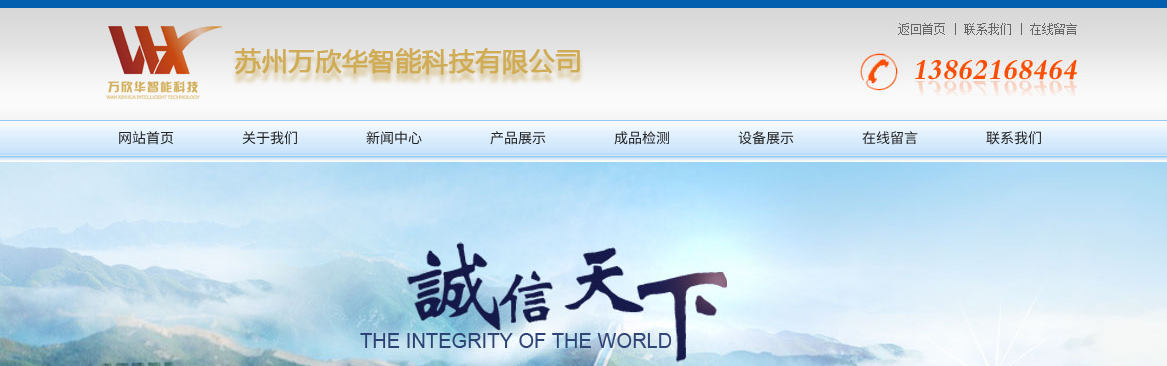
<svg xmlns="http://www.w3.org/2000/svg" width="1167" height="366">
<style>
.a{font:14px Noto Sans CJK SC;fill:#232323}
</style>
<rect width="100%" height="100%" fill="#fff"/>
<image href="1.png" x="0" y="0" width="1167" height="162"/>
<image href="2.png" x="101" y="16" width="983" height="87"/>
<image href="3.png" x="0" y="162" width="1167" height="204"/>
<text class="a" x="118" y="143">网站首页</text>
<text class="a" x="242" y="143">关于我们</text>
<text class="a" x="366" y="143">新闻中心</text>
<text class="a" x="490" y="143">产品展示</text>
<text class="a" x="614" y="143">成品检测</text>
<text class="a" x="738" y="143">设备展示</text>
<text class="a" x="862" y="143">在线留言</text>
<text class="a" x="986" y="143">联系我们</text>
</svg>
